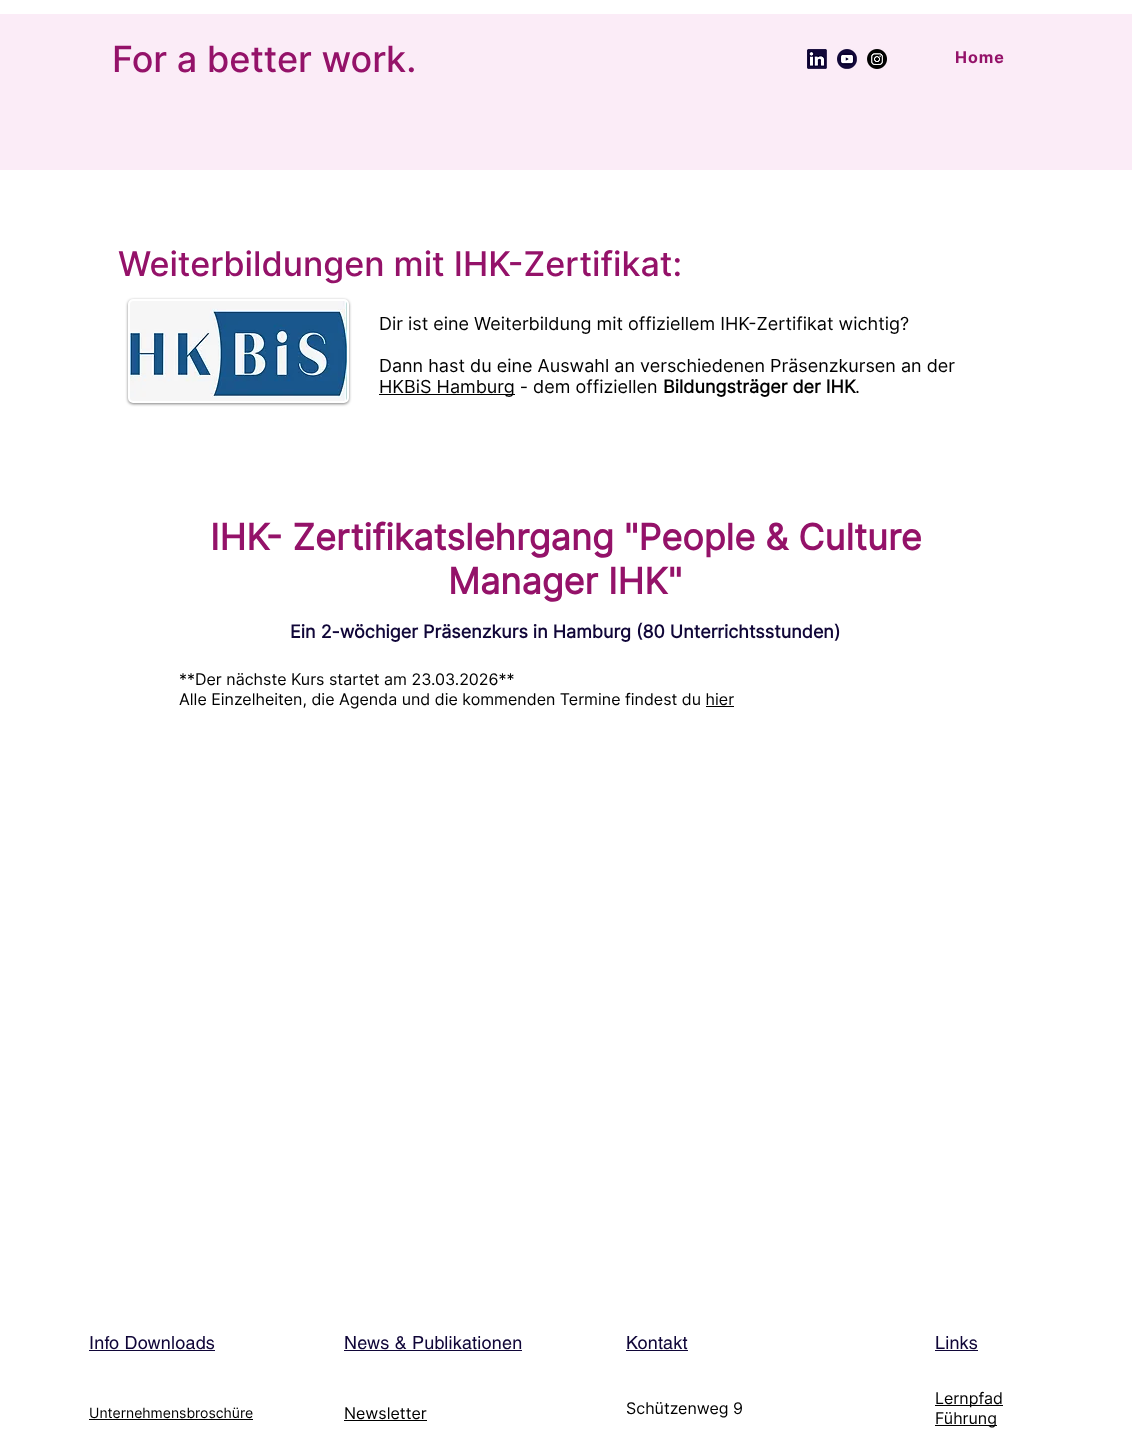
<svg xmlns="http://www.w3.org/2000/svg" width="1132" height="1437">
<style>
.a{font:500 36px Inter;fill:#941269}
.b{font:bold 16px 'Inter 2';letter-spacing:1px;fill:#941269}
.c{font:500 34px Inter;fill:#941269}
.d{font:18px Inter;fill:#000}
.e{font:bold 18px Inter;fill:#000}
.f{font:bold 36px Inter;fill:#941269}
.g{font:bold 18px Inter;fill:#100638}
.h{font:16px Inter;fill:#000}
.i{font:18px helvetica;letter-spacing:0.2px;fill:#100638}
.j{font:14px Inter;fill:#000}
</style>
<rect width="100%" height="100%" fill="#fff"/>
<path fill="#fbecf7" d="M0 14h1132v156H0z"/>
<image href="1.png" x="807" y="49" width="20" height="20"/>
<image href="2.png" x="837" y="49" width="20" height="20"/>
<image href="3.png" x="867" y="49" width="20" height="20"/>
<rect fill="#00000080" filter="blur(1.5px)" x="128" y="300" width="221" height="104" rx="5"/>
<rect fill="#fff" stroke="#fff" stroke-width="2" x="129" y="300" width="219" height="102" rx="4"/>
<image href="4.png" x="130" y="301" width="217" height="100"/>
<path fill="#000" d="M379 394h136v1H379z"/>
<path fill="#000" d="M706 706h28v1H706z"/>
<path fill="#100638" d="M89 1350h126v1H89z"/>
<path fill="#100638" d="M344 1350h178v1H344z"/>
<path fill="#000" d="M344 1420h83v1H344z"/>
<path fill="#100638" d="M626 1350h62v1H626z"/>
<path fill="#100638" d="M935 1350h43v1H935z"/>
<path fill="#000" d="M89 1419h164v1H89z"/>
<path fill="#000" d="M935 1405h68v1H935z"/>
<path fill="#000" d="M935 1425h62v1H935z"/>
<text class="a" x="112" y="72">For a better work.</text>
<text class="b" x="955" y="63">Home</text>
<text class="c" x="118" y="276">Weiterbildungen mit IHK-Zertifikat:</text>
<text class="d" x="379" y="330">Dir ist eine Weiterbildung mit offiziellem IHK-Zertifikat wichtig?</text>
<text class="d" x="379" y="372">Dann hast du eine Auswahl an verschiedenen Präsenzkursen an der</text>
<text class="d" x="379" y="393">HKBiS Hamburg - dem offiziellen</text>
<text class="e" x="663" y="393">Bildungsträger der IHK</text>
<text class="d" x="855" y="393">.</text>
<text class="f" x="210" y="550">IHK- Zertifikatslehrgang "People &amp; Culture</text>
<text class="f" x="448" y="594">Manager IHK"</text>
<text class="g" x="290" y="638">Ein 2-wöchiger Präsenzkurs in Hamburg (80 Unterrichtsstunden)</text>
<text class="h" x="179" y="685">**Der nächste Kurs startet am 23.03.2026**</text>
<text class="h" x="179" y="705">Alle Einzelheiten, die Agenda und die kommenden Termine findest du hier</text>
<text class="i" x="89" y="1349">Info Downloads</text>
<text class="i" x="344" y="1349">News &amp; Publikationen</text>
<text class="h" x="344" y="1419">Newsletter</text>
<text class="i" x="626" y="1349">Kontakt</text>
<text class="h" x="626" y="1414">Schützenweg 9</text>
<text class="i" x="935" y="1349">Links</text>
<text class="j" x="89" y="1418">Unternehmensbroschüre</text>
<text class="h" x="935" y="1404">Lernpfad</text>
<text class="h" x="935" y="1424">Führung</text>
</svg>
